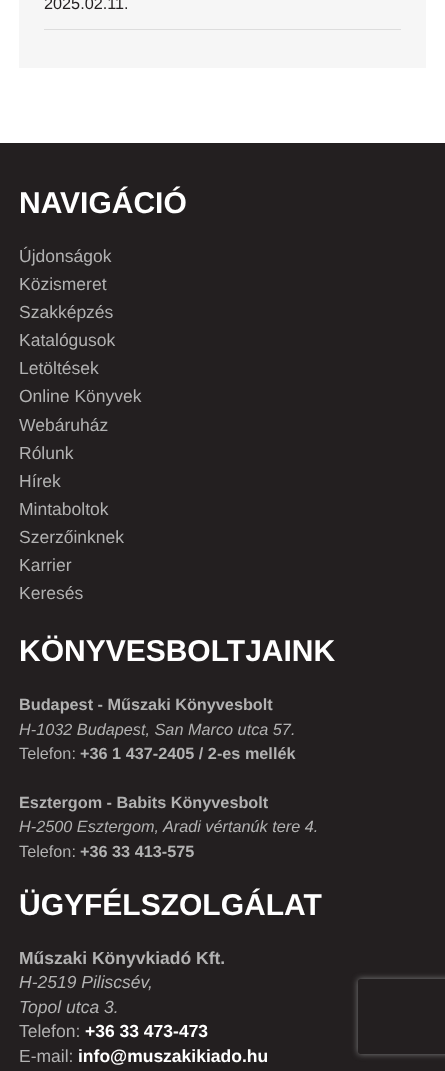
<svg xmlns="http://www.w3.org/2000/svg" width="445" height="1071">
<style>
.a{font:16.25px Liberation Sans;fill:#231f20}
.b{font:bold 30px Liberation Sans;fill:#fff}
.c{font:17.5px Liberation Sans;fill:#b2b2b2}
.d{font:bold 16.25px Liberation Sans;fill:#b2b2b2}
.e{font:italic 16.25px Liberation Sans;fill:#b2b2b2}
.f{font:16.25px Liberation Sans;fill:#b2b2b2}
.g{font:bold 17.5px Liberation Sans;fill:#b2b2b2}
.h{font:italic 17.5px Liberation Sans;fill:#b2b2b2}
.i{font:bold 17.5px Liberation Sans;fill:#fff}
</style>
<defs>
<clipPath id="clip1"><path d="M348 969h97v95h-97zm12.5 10h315c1.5 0 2.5 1 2.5 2.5v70c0 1.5-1 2.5-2.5 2.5h-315c-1.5 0-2.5-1-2.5-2.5v-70c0-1.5 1-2.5 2.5-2.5z" clip-rule="evenodd"/></clipPath>
</defs>
<rect width="100%" height="100%" fill="#231f20"/>
<path fill="#fff" d="M0 0h445v143H0z"/>
<path fill="#f6f6f6" d="M19 0h407v68H19z"/>
<path fill="#ddd" d="M44 29h357v1H44z"/>
<g clip-path="url(#clip1)">
<rect fill="#808080" filter="blur(3px)" x="358" y="979" width="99" height="75" rx="2.5"/>
</g>
<text class="a" x="44" y="9">2025.02.11.</text>
<text class="b" x="19" y="213">NAVIGÁCIÓ</text>
<text class="c" x="19" y="262">Újdonságok</text>
<text class="c" x="19" y="290">Közismeret</text>
<text class="c" x="19" y="318">Szakképzés</text>
<text class="c" x="19" y="346">Katalógusok</text>
<text class="c" x="19" y="374">Letöltések</text>
<text class="c" x="19" y="402">Online Könyvek</text>
<text class="c" x="19" y="431">Webáruház</text>
<text class="c" x="19" y="459">Rólunk</text>
<text class="c" x="19" y="487">Hírek</text>
<text class="c" x="19" y="515">Mintaboltok</text>
<text class="c" x="19" y="543">Szerzőinknek</text>
<text class="c" x="19" y="571">Karrier</text>
<text class="c" x="19" y="599">Keresés</text>
<text class="b" x="19" y="661">KÖNYVESBOLTJAINK</text>
<text class="d" x="19" y="710">Budapest - Műszaki Könyvesbolt</text>
<text class="e" x="19" y="735">H-1032 Budapest, San Marco utca 57.</text>
<text class="f" x="19" y="759">Telefon:</text>
<text class="d" x="80" y="759">+36 1 437-2405 / 2-es mellék</text>
<text class="d" x="19" y="808">Esztergom - Babits Könyvesbolt</text>
<text class="e" x="19" y="832">H-2500 Esztergom, Aradi vértanúk tere 4.</text>
<text class="f" x="19" y="857">Telefon:</text>
<text class="d" x="80" y="857">+36 33 413-575</text>
<text class="b" x="19" y="915">ÜGYFÉLSZOLGÁLAT</text>
<text class="g" x="19" y="964">Műszaki Könyvkiadó Kft.</text>
<text class="h" x="19" y="988">H-2519 Piliscsév,</text>
<text class="h" x="19" y="1013">Topol utca 3.</text>
<text class="c" x="19" y="1037">Telefon:</text>
<text class="i" x="85" y="1037">+36 33 473-473</text>
<text class="c" x="19" y="1062">E-mail:</text>
<text class="i" x="78" y="1062">info@muszakikiado.hu</text>
</svg>
